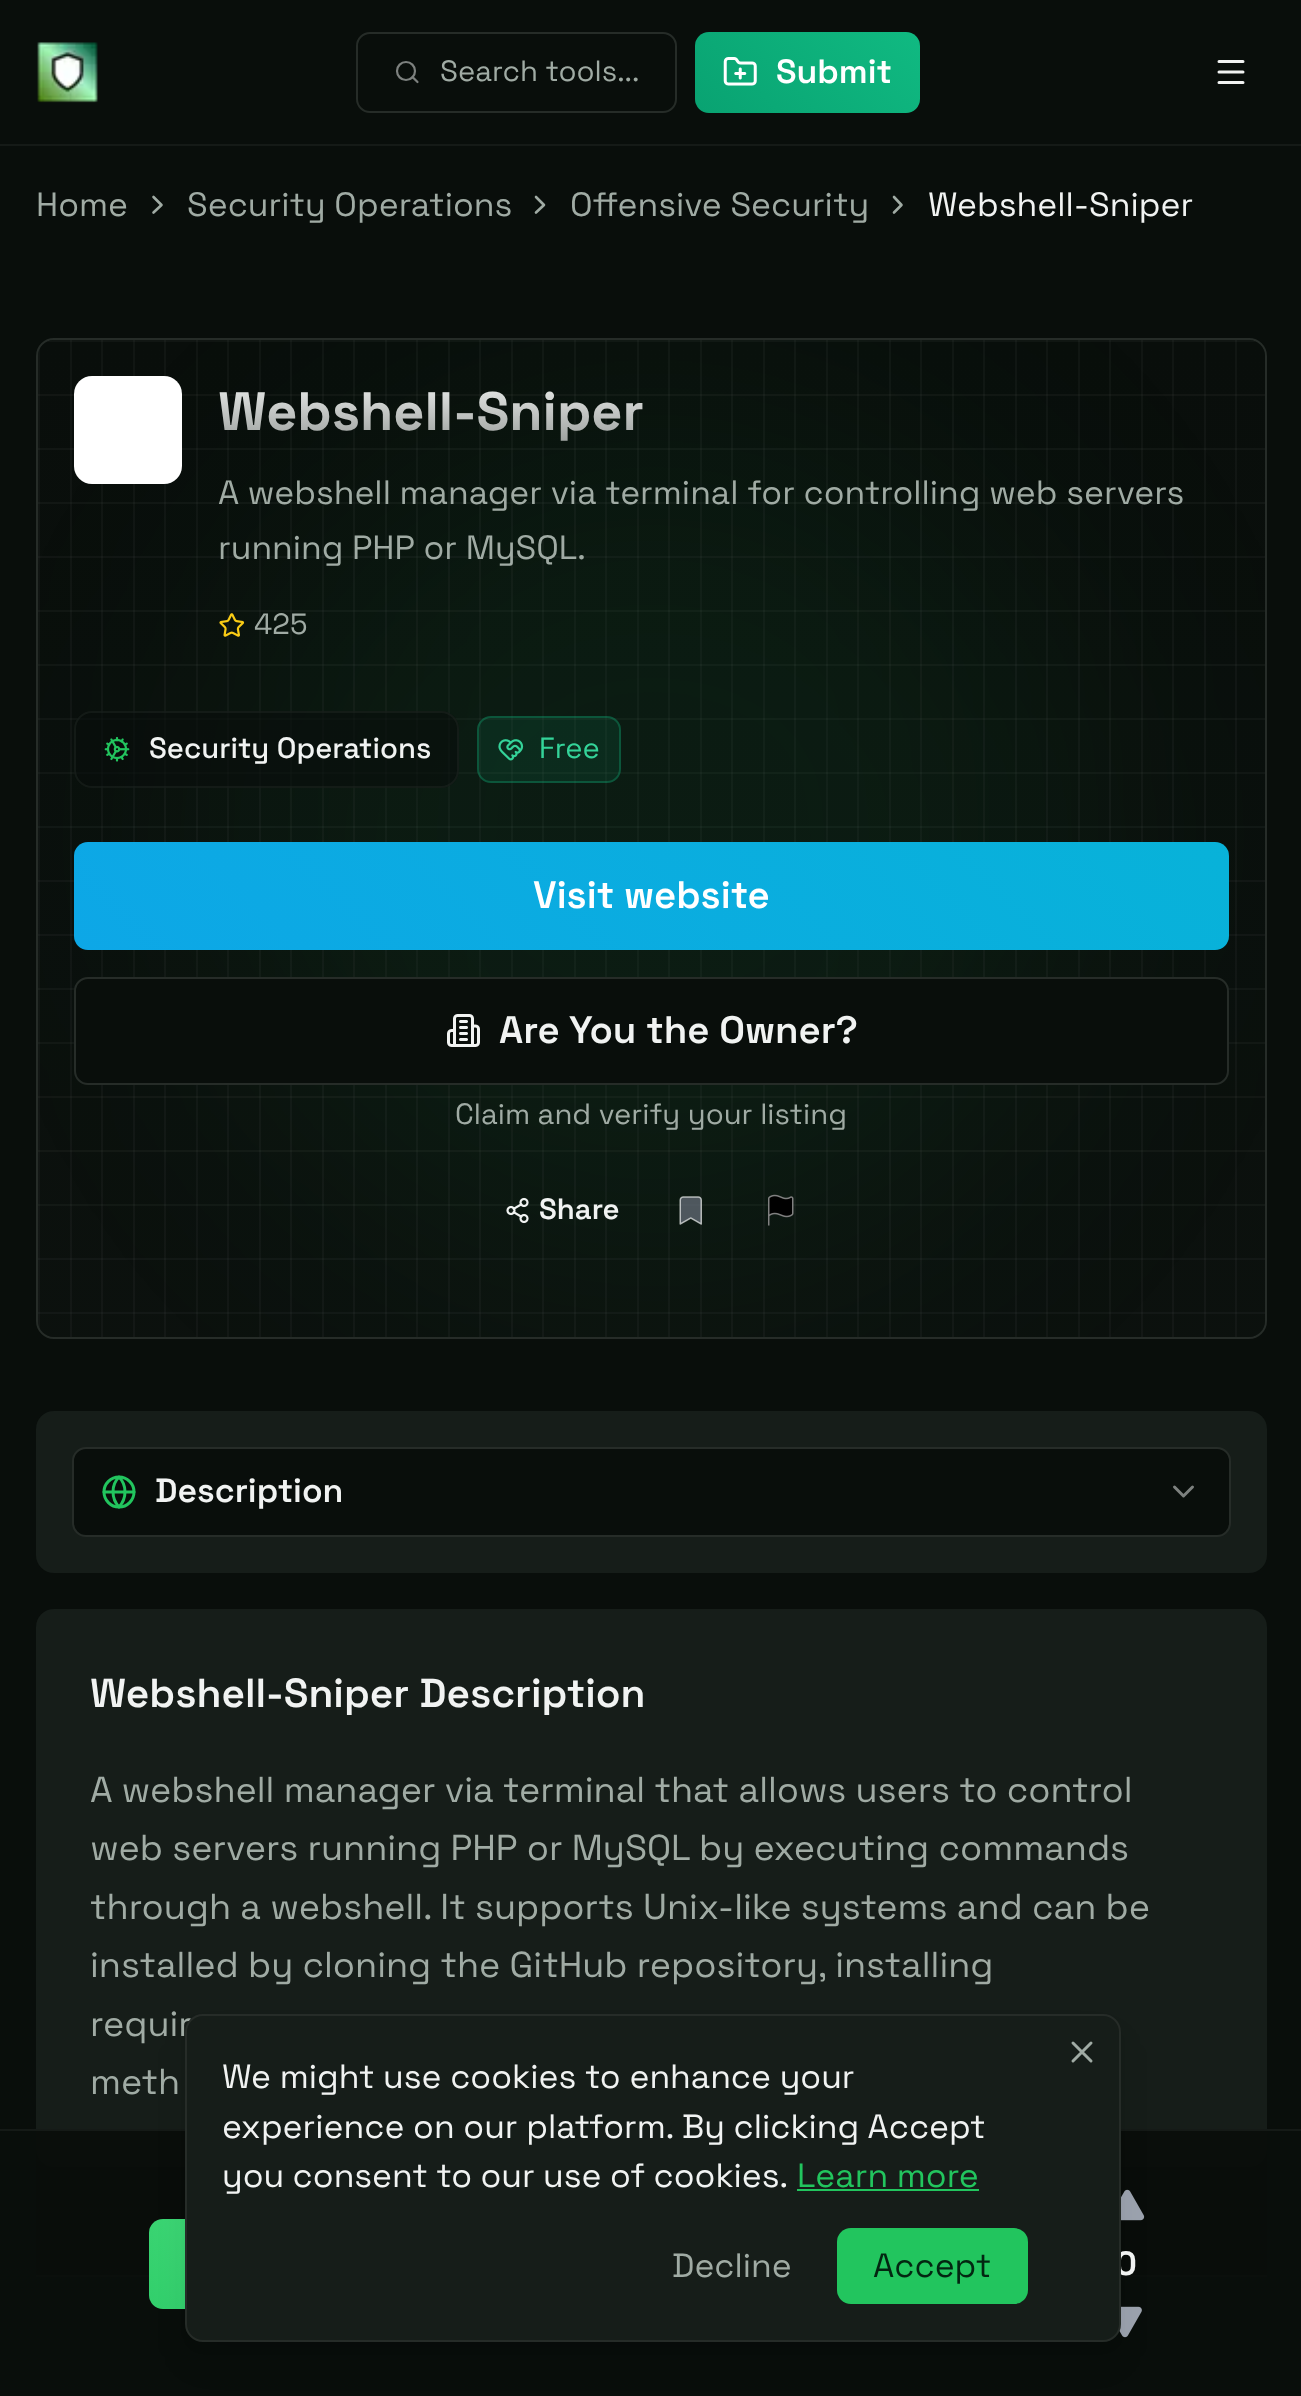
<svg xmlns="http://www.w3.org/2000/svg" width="1301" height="2396">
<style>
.a{font:29.25px Space Grotesk;fill:#a0aba4}
.b{font:600 33.75px Space Grotesk;fill:#fff}
.c{font:33.75px Space Grotesk;fill:#a0aba4}
.d{font:33.75px Space Grotesk;fill:#f1f3f2}
.e{font:bold 54px Space Grotesk;fill:url(#g2)}
.f{font:500 29.25px Space Grotesk;fill:#f1f3f2}
.g{font:29.25px Space Grotesk;fill:#34d399}
.h{font:600 38.25px Space Grotesk;fill:#fff}
.i{font:600 38.25px Space Grotesk;fill:#f1f3f2}
.j{font:600 29.25px Space Grotesk;fill:#f1f3f2}
.k{font:bold 33.75px Space Grotesk;fill:#f1f3f2}
.l{font:600 33.75px Space Grotesk;fill:#f1f3f2}
.m{font:600 40.5px Space Grotesk;fill:#f1f3f2}
.n{font:36px Space Grotesk;fill:#a0aba4}
.o{font:33.75px Space Grotesk;fill:#22c55e}
.p{font:33.75px Space Grotesk;fill:#032611}
</style>
<defs>
<linearGradient id="g1" gradientUnits="userSpaceOnUse" x1="651" y1="340" x2="651" y2="1337"><stop offset="0" stop-color="#090e0b"/><stop offset="1" stop-color="#090e0b" stop-opacity="0.8"/></linearGradient>
<clipPath id="clip1"><rect x="38" y="340" width="1227" height="997" rx="16"/></clipPath>
<clipPath id="clip2"><rect x="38" y="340" width="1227" height="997" rx="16"/></clipPath>
<linearGradient id="g2" gradientUnits="userSpaceOnUse" x1="431" y1="376" x2="431" y2="448"><stop offset="0" stop-color="#f1f3f2"/><stop offset="0.5" stop-color="#c3c6c4"/><stop offset="1" stop-color="#959a97"/></linearGradient>
<linearGradient id="g3" gradientUnits="userSpaceOnUse" x1="803" y1="383" x2="1262" y2="-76"><stop offset="0" stop-color="#059669"/><stop offset="0.5" stop-color="#10b981"/><stop offset="1" stop-color="#34d399"/></linearGradient>
<linearGradient id="g4" gradientUnits="userSpaceOnUse" x1="859" y1="1950" x2="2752" y2="57"><stop offset="0" stop-color="#0ea5e9"/><stop offset="0.5" stop-color="#06b6d4"/><stop offset="1" stop-color="#22d3ee"/></linearGradient>
<linearGradient id="g5" gradientUnits="userSpaceOnUse" x1="246" y1="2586" x2="712" y2="2121"><stop offset="0" stop-color="#22c55e"/><stop offset="0.5" stop-color="#4ade80"/><stop offset="1" stop-color="#86efac"/></linearGradient>
</defs>
<rect width="100%" height="100%" fill="#090e0b"/>
<path fill="none" stroke="#a0aba4" stroke-width="2.6" stroke-linecap="round" stroke-linejoin="round" d="M153.5 212.5l8-7.5l-8-8"/>
<path fill="none" stroke="#a0aba4" stroke-width="2.6" stroke-linecap="round" stroke-linejoin="round" d="M536 212.5l8-7.5l-8-8"/>
<path fill="none" stroke="#a0aba4" stroke-width="2.6" stroke-linecap="round" stroke-linejoin="round" d="M894 212.5l7.5-7.5l-7.5-8"/>
<rect fill="#161d19" stroke="#262c28" stroke-width="2" x="37" y="339" width="1229" height="999" rx="17"/>
<rect fill="url(#g1)" x="38" y="340" width="1227" height="997" rx="16"/>
<g clip-path="url(#clip1)">
<path fill="#80808012" d="M47 340h1209v2H47z"/>
</g>
<path fill="#121613" d="M38 394h1227v2H38z"/>
<path fill="#121714" d="M38 448h1227v2H38z"/>
<path fill="#121714" d="M38 502h1227v2H38z"/>
<path fill="#121614" d="M38 556h1227v2H38z"/>
<path fill="#121714" d="M38 610h1227v2H38z"/>
<path fill="#121714" d="M38 664h1227v2H38z"/>
<path fill="#121714" d="M38 718h1227v2H38z"/>
<path fill="#121714" d="M38 772h1227v2H38z"/>
<path fill="#121815" d="M38 826h1227v2H38z"/>
<path fill="#131715" d="M38 880h1227v2H38z"/>
<path fill="#131715" d="M38 934h1227v2H38z"/>
<path fill="#131815" d="M38 988h1227v2H38z"/>
<path fill="#131815" d="M38 1042h1227v2H38z"/>
<path fill="#141815" d="M38 1096h1227v2H38z"/>
<path fill="#141915" d="M38 1150h1227v2H38z"/>
<path fill="#131915" d="M38 1204h1227v2H38z"/>
<path fill="#131816" d="M38 1258h1227v2H38z"/>
<path fill="#131816" d="M38 1312h1227v2H38z"/>
<image href="3.png" x="38" y="340" width="1199" height="997"/>
<rect fill="#161d19" x="36" y="1411" width="1231" height="162" rx="18"/>
<rect fill="#090e0b" stroke="#262c28" stroke-width="2" x="73" y="1448" width="1157" height="88" rx="13"/>
<circle fill="none" stroke="#22c55e" stroke-width="3" cx="119" cy="1492" r="15"/>
<path fill="none" stroke="#22c55e" stroke-width="3" stroke-linecap="round" stroke-linejoin="round" d="M119 1477c-8 8-8 21.5 0 30c8-8.5 8-22 0-30m-15 15h30"/>
<rect fill="#161d19" x="36" y="1609" width="1231" height="558" rx="18"/>
<g clip-path="url(#clip2)">
<rect fill="#22c55e12" filter="blur(144px)" x="221" y="405" width="864" height="864" rx="432"/>
</g>
<path fill="#151a17" d="M0 144h1301v2H0z"/>
<image href="1.png" x="37" y="42" width="61" height="61"/>
<rect fill="none" stroke="#262c28" stroke-width="2" x="357" y="33" width="319" height="79" rx="13"/>
<path fill="none" stroke="#7d817f" stroke-width="2.2" stroke-linecap="round" stroke-linejoin="round" d="M417.5 82l-5-5"/>
<circle fill="none" stroke="#7d817f" stroke-width="2.2" cx="406" cy="71" r="9"/>
<rect fill="url(#g3)" x="695" y="32" width="225" height="81" rx="14"/>
<image href="2.png" x="723" y="57" width="34" height="29"/>
<path fill="none" stroke="#f1f3f2" stroke-width="3" stroke-linecap="round" stroke-linejoin="round" d="M1219 61.5h24m-24 10.5h24m-24 10.5h24"/>
<rect fill="#fff" x="74" y="376" width="108" height="108" rx="18"/>
<image href="4.png" x="219" y="613" width="26" height="24"/>
<rect fill="#090e0b99" x="74" y="711" width="385" height="77" rx="18"/>
<rect fill="none" stroke="#262c2866" stroke-width="2" x="75" y="712" width="383" height="75" rx="17"/>
<image href="5.png" x="104" y="736" width="26" height="26"/>
<rect fill="#10b9811a" x="477" y="716" width="144" height="67" rx="14"/>
<rect fill="none" stroke="#10b9814d" stroke-width="2" x="478" y="717" width="142" height="65" rx="13"/>
<image href="6.png" x="498" y="739" width="26" height="22"/>
<rect fill="url(#g4)" x="74" y="842" width="1155" height="108" rx="14"/>
<rect fill="#090e0b" stroke="#262c28" stroke-width="2" x="75" y="978" width="1153" height="106" rx="13"/>
<image href="7.png" x="447" y="1014" width="33" height="33"/>
<image href="8.png" x="506" y="1197" width="23" height="27"/>
<image href="9.png" x="679" y="1196" width="23" height="29"/>
<image href="10.png" x="768" y="1194" width="26" height="32"/>
<path fill="#262c28" d="M36 2275h1231v2H36z"/>
<path fill="#090e0bf2" d="M36 2131h1231v146H36z"/>
<path fill="#151a17" d="M0 2129h1301v2H0z"/>
<rect fill="url(#g5)" x="149" y="2219" width="220" height="90" rx="14"/>
<image href="11.png" x="1121" y="2189" width="24" height="32"/>
<image href="12.png" x="1119" y="2306" width="23" height="32"/>
<path fill="none" stroke="#7d817f" stroke-width="3" stroke-linecap="round" stroke-linejoin="round" d="M1174.5 1487l9 9l9-9"/>
<rect fill="#0000001a" filter="blur(7px)" x="194" y="2032" width="918" height="310" rx="9"/>
<rect fill="#0000001a" filter="blur(17px)" x="191" y="2043" width="923" height="315" rx="11"/>
<text class="a" x="440" y="81">Search tools...</text>
<text class="b" x="776" y="83">Submit</text>
<text class="c" x="36" y="216">Home</text>
<text class="c" x="187" y="216">Security Operations</text>
<text class="c" x="570" y="216">Offensive Security</text>
<text class="d" x="928" y="216">Webshell-Sniper</text>
<text class="e" x="218" y="430">Webshell-Sniper</text>
<text class="c" x="218" y="504">A webshell manager via terminal for controlling web servers</text>
<text class="c" x="218" y="559">running PHP or MySQL.</text>
<text class="a" x="254" y="634">425</text>
<text class="f" x="149" y="758">Security Operations</text>
<text class="g" x="539" y="758">Free</text>
<text class="h" x="533" y="908">Visit website</text>
<text class="i" x="499" y="1043">Are You the Owner?</text>
<text class="a" x="455" y="1124">Claim and verify your listing</text>
<text class="j" x="539" y="1219">Share</text>
<text class="k" x="1115" y="2275">0</text>
<text class="l" x="155" y="1502">Description</text>
<text class="m" x="90" y="1707">Webshell-Sniper Description</text>
<text class="n" x="90" y="1802">A webshell manager via terminal that allows users to control</text>
<text class="n" x="90" y="1860">web servers running PHP or MySQL by executing commands</text>
<text class="n" x="90" y="1919">through a webshell. It supports Unix-like systems and can be</text>
<text class="n" x="90" y="1977">installed by cloning the GitHub repository, installing</text>
<text class="n" x="90" y="2036">requir</text>
<text class="n" x="90" y="2094">meth</text>
<rect fill="#161d19" stroke="#262c28" stroke-width="2" x="186" y="2015" width="934" height="326" rx="17"/>
<path fill="none" stroke="#a0aba4" stroke-width="3" stroke-linecap="round" stroke-linejoin="round" d="M1091 2043l-18 18m0-18l18 18"/>
<text class="d" x="222" y="2088">We might use cookies to enhance your</text>
<text class="d" x="222" y="2138">experience on our platform. By clicking Accept</text>
<text class="d" x="222" y="2187" word-spacing="-0.25">you consent to our use of cookies.</text>
<text class="o" x="797" y="2187">Learn more</text>
<path fill="#22c55e" d="M797 2189h182v2H797z"/>
<text class="c" x="672" y="2277">Decline</text>
<rect fill="#22c55e" x="837" y="2228" width="191" height="76" rx="14"/>
<text class="p" x="873" y="2277">Accept</text>
</svg>
